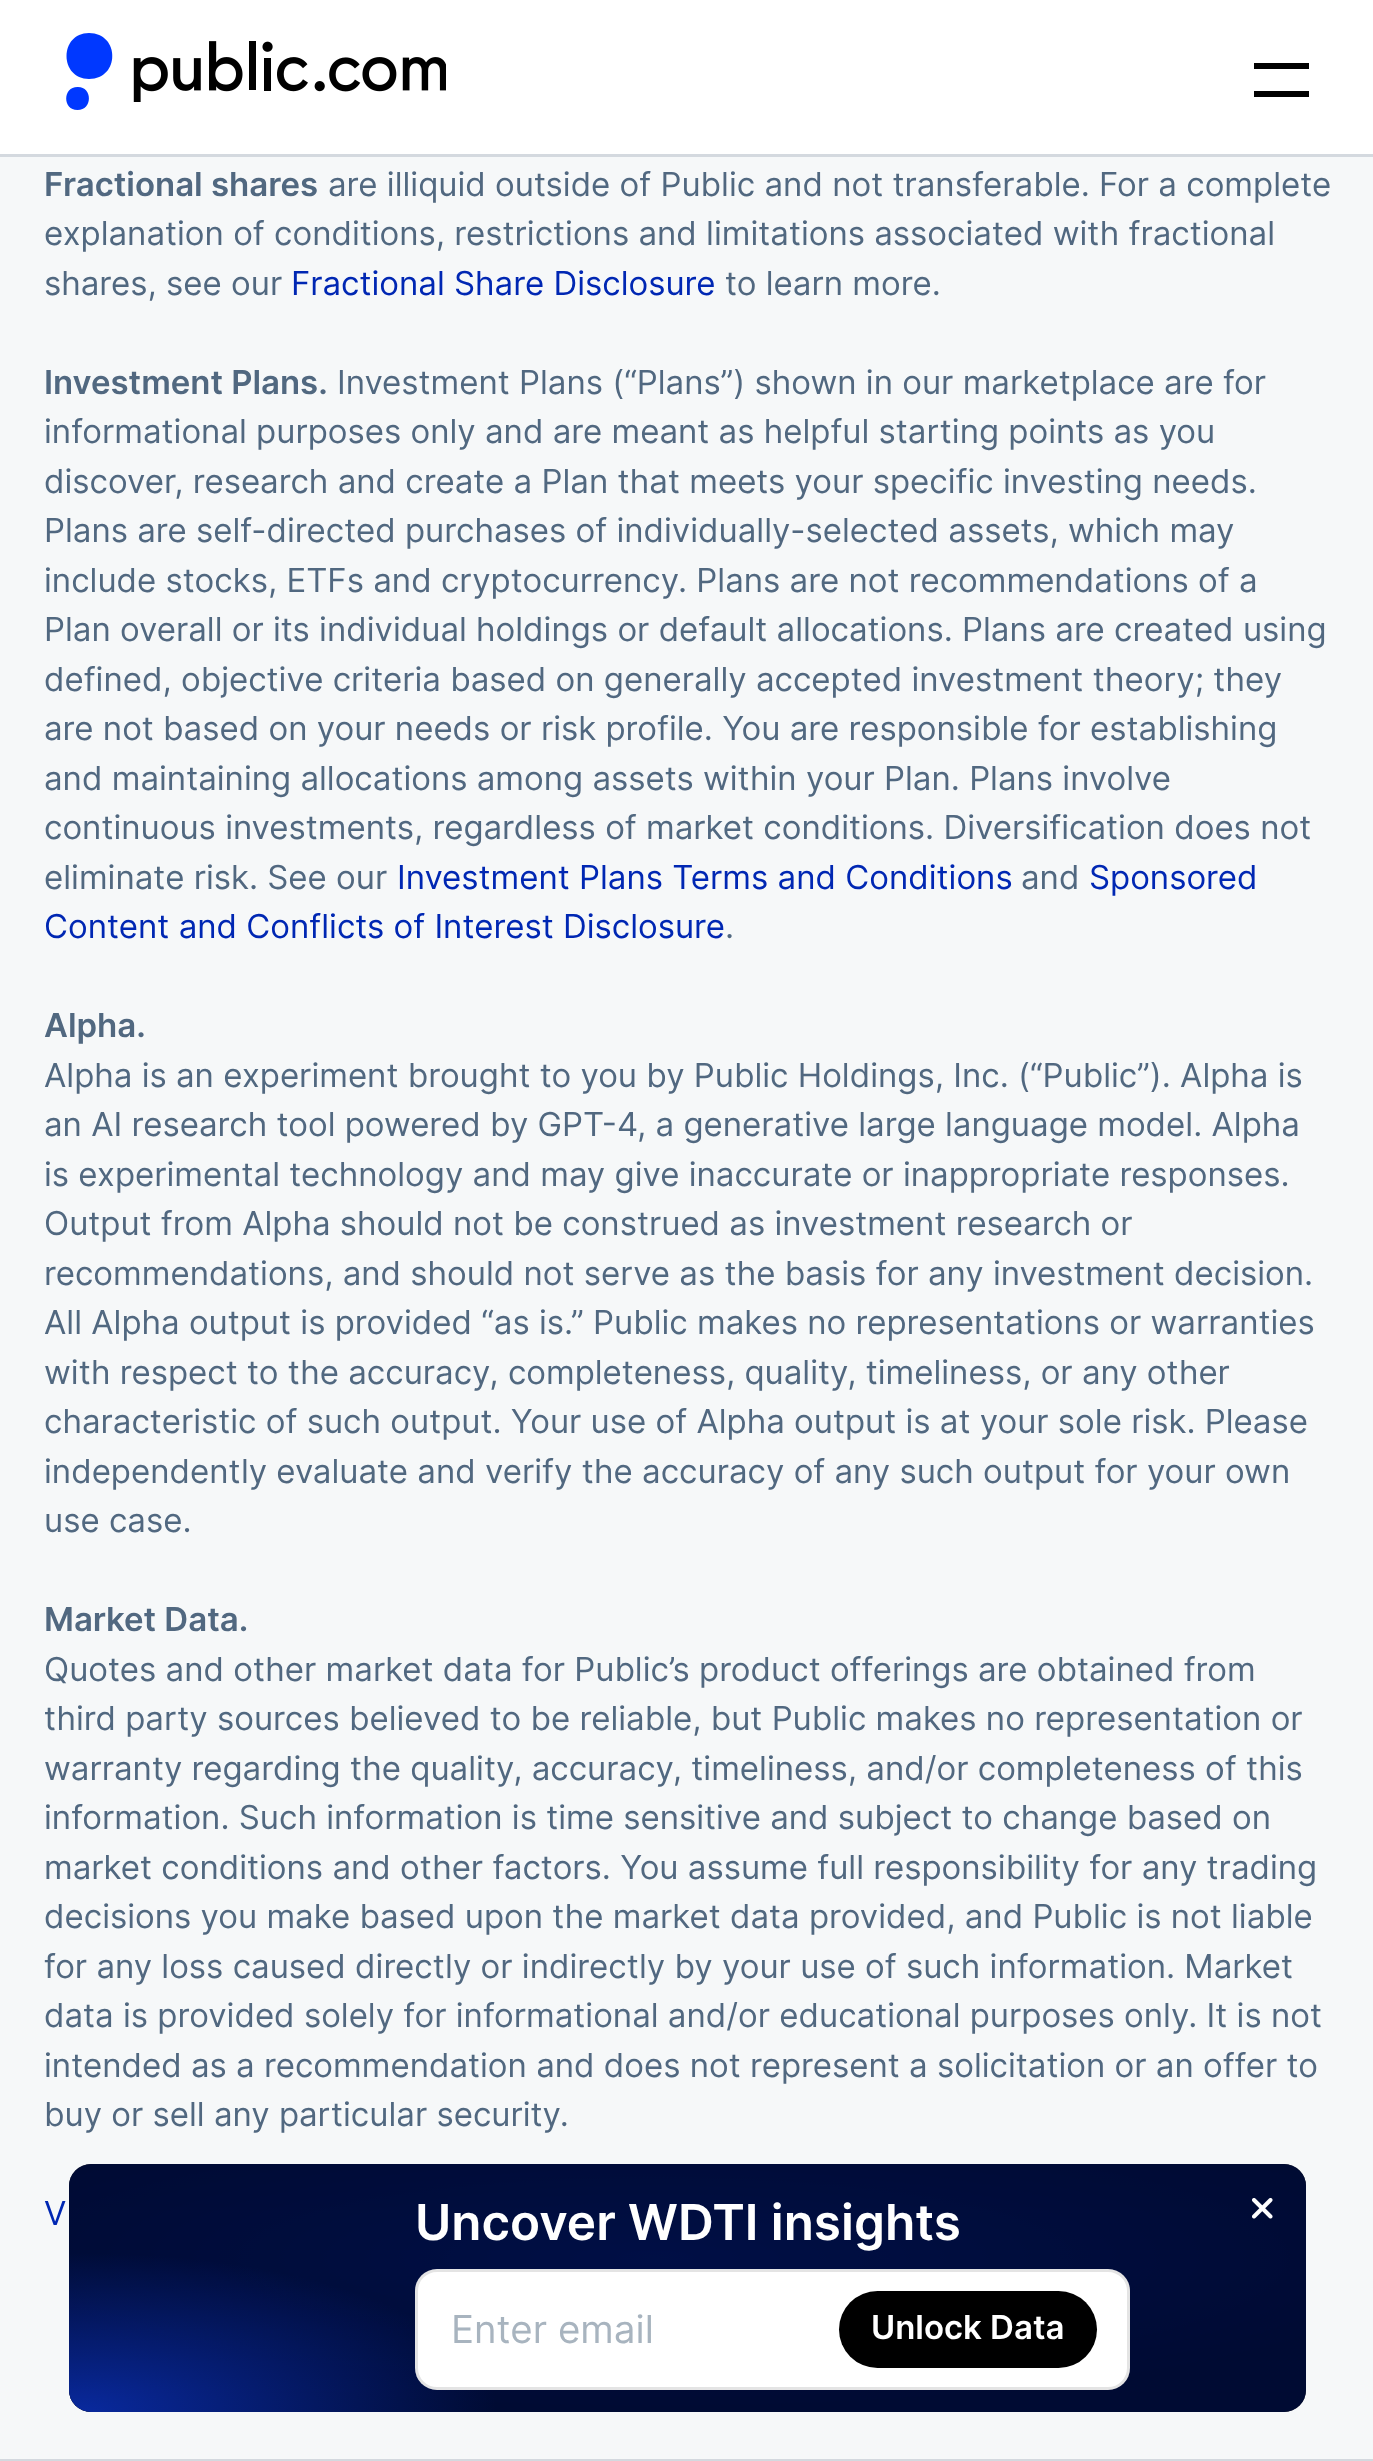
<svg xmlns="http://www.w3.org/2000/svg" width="1373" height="2461">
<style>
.a{font:600 33px Inter;fill:#516880}
.b{font:33px Inter;fill:#516880}
.c{font:33px Inter;fill:#0027b3}
.d{font:600 49.5px Inter;fill:#fff}
.e{font:38.5px Inter;fill:#a8b4bf}
.f{font:600 33px Inter;fill:#fff}
</style>
<defs>
<radialGradient id="g1" gradientUnits="userSpaceOnUse" cx="0" cy="0" r="1" gradientTransform="matrix(799 0 0 155 655 2258)"><stop offset="0" stop-color="#00145d"/><stop offset="1" stop-color="#000"/></radialGradient>
<radialGradient id="g2" gradientUnits="userSpaceOnUse" cx="0" cy="0" r="1" gradientTransform="matrix(414 0 0 159 83 2412)"><stop offset="0" stop-color="#09299d"/><stop offset="1" stop-color="#09299d" stop-opacity="0"/></radialGradient>
</defs>
<rect width="100%" height="100%" fill="#f6f8f9"/>
<path fill="#fff" d="M0 0h1373v154H0z"/>
<path fill="#d4d9df" d="M0 154h1373v3H0z"/>
<path fill="#0038ff" d="M89 79c31 0 31-46 0-46c-30 0-30 46 0 46z"/>
<path fill="#0038ff" d="M77.5 110c15.5 0 15-23.5 0-23c-15 0-15 23 0 23z"/>
<image href="1.png" x="133" y="41" width="313" height="61"/>
<path fill="#000" d="M1254 63h55v6H1254z"/>
<path fill="#000" d="M1254 91h55v6H1254z"/>
<path fill="#d4d9df" d="M0 2459h1373v2H0z"/>
<rect fill="url(#g1)" x="69" y="2164" width="1237" height="248" rx="22"/>
<rect fill="#000e40cc" x="69" y="2164" width="1237" height="248" rx="22"/>
<rect fill="url(#g2)" x="69" y="2164" width="1237" height="248" rx="22"/>
<rect fill="#fff" x="415" y="2269" width="715" height="121" rx="22"/>
<rect fill="none" stroke="#78787833" stroke-width="3" x="416.5" y="2270.5" width="712" height="118" rx="20.5"/>
<rect fill="#000" x="839" y="2291" width="258" height="77" rx="38.5"/>
<image href="2.png" x="1252" y="2197" width="21" height="22"/>
<text class="a" x="44" y="196">Fractional shares</text>
<text class="b" x="328" y="196">are illiquid outside of Public and not transferable. For a complete</text>
<text class="b" x="44" y="245">explanation of conditions, restrictions and limitations associated with fractional</text>
<text class="b" x="44" y="295">shares, see our</text>
<text class="c" x="291" y="295">Fractional Share Disclosure</text>
<text class="b" x="725" y="295">to learn more.</text>
<text class="a" x="44" y="394">Investment Plans.</text>
<text class="b" x="337" y="394">Investment Plans (“Plans”) shown in our marketplace are for</text>
<text class="b" x="44" y="443">informational purposes only and are meant as helpful starting points as you</text>
<text class="b" x="44" y="493">discover, research and create a Plan that meets your specific investing needs.</text>
<text class="b" x="44" y="542">Plans are self-directed purchases of individually-selected assets, which may</text>
<text class="b" x="44" y="592">include stocks, ETFs and cryptocurrency. Plans are not recommendations of a</text>
<text class="b" x="44" y="641">Plan overall or its individual holdings or default allocations. Plans are created using</text>
<text class="b" x="44" y="691">defined, objective criteria based on generally accepted investment theory; they</text>
<text class="b" x="44" y="740">are not based on your needs or risk profile. You are responsible for establishing</text>
<text class="b" x="44" y="790">and maintaining allocations among assets within your Plan. Plans involve</text>
<text class="b" x="44" y="839">continuous investments, regardless of market conditions. Diversification does not</text>
<text class="b" x="44" y="889">eliminate risk. See our</text>
<text class="c" x="397" y="889">Investment Plans Terms and Conditions</text>
<text class="b" x="1021" y="889">and</text>
<text class="c" x="1089" y="889">Sponsored</text>
<text class="c" x="44" y="938">Content and Conflicts of Interest Disclosure</text>
<text class="b" x="725" y="938">.</text>
<text class="a" x="44" y="1037">Alpha.</text>
<text class="b" x="44" y="1087">Alpha is an experiment brought to you by Public Holdings, Inc. (“Public”). Alpha is</text>
<text class="b" x="44" y="1136">an AI research tool powered by GPT-4, a generative large language model. Alpha</text>
<text class="b" x="44" y="1186">is experimental technology and may give inaccurate or inappropriate responses.</text>
<text class="b" x="44" y="1235">Output from Alpha should not be construed as investment research or</text>
<text class="b" x="44" y="1285">recommendations, and should not serve as the basis for any investment decision.</text>
<text class="b" x="44" y="1334">All Alpha output is provided “as is.” Public makes no representations or warranties</text>
<text class="b" x="44" y="1384">with respect to the accuracy, completeness, quality, timeliness, or any other</text>
<text class="b" x="44" y="1433">characteristic of such output. Your use of Alpha output is at your sole risk. Please</text>
<text class="b" x="44" y="1483">independently evaluate and verify the accuracy of any such output for your own</text>
<text class="b" x="44" y="1532">use case.</text>
<text class="a" x="44" y="1631">Market Data.</text>
<text class="b" x="44" y="1681">Quotes and other market data for Public’s product offerings are obtained from</text>
<text class="b" x="44" y="1730">third party sources believed to be reliable, but Public makes no representation or</text>
<text class="b" x="44" y="1780">warranty regarding the quality, accuracy, timeliness, and/or completeness of this</text>
<text class="b" x="44" y="1829">information. Such information is time sensitive and subject to change based on</text>
<text class="b" x="44" y="1879">market conditions and other factors. You assume full responsibility for any trading</text>
<text class="b" x="44" y="1928">decisions you make based upon the market data provided, and Public is not liable</text>
<text class="b" x="44" y="1978">for any loss caused directly or indirectly by your use of such information. Market</text>
<text class="b" x="44" y="2027">data is provided solely for informational and/or educational purposes only. It is not</text>
<text class="b" x="44" y="2077">intended as a recommendation and does not represent a solicitation or an offer to</text>
<text class="b" x="44" y="2126">buy or sell any particular security.</text>
<text class="c" x="44" y="2225">V</text>
<text class="d" x="415" y="2240">Uncover WDTI insights</text>
<text class="e" x="451" y="2343">Enter email</text>
<text class="f" x="871" y="2339">Unlock Data</text>
</svg>
